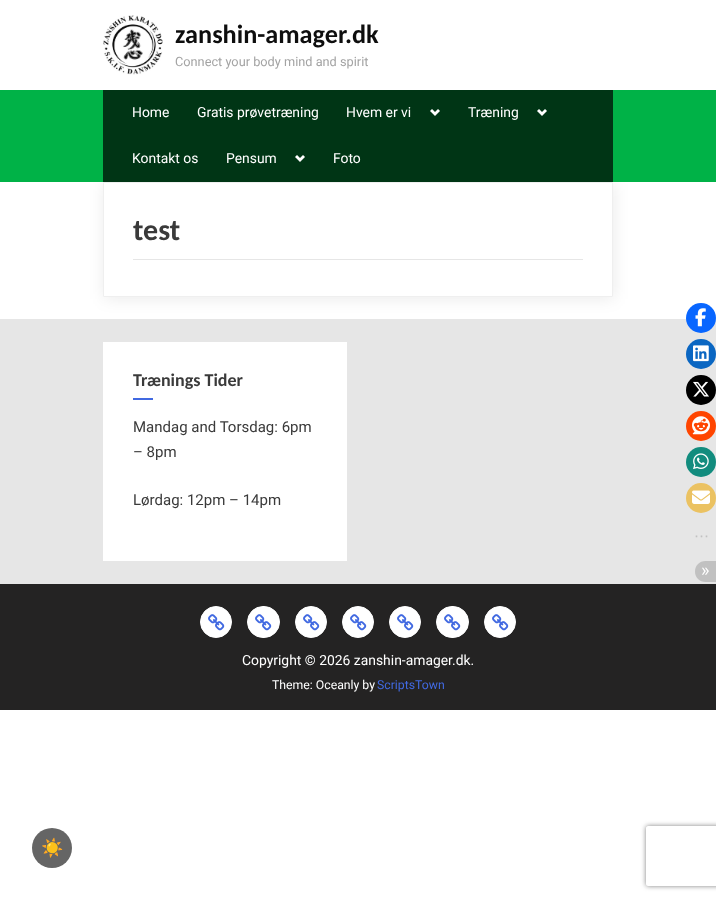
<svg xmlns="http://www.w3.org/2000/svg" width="716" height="900">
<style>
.a{font:bold 26.25px Carlito;fill:#0e0e0e}
.b{font:12.75px Roboto;fill:#a3a3a3}
.c{font:13.9px Roboto;fill:#fff}
.d{font:bold 30px Carlito;fill:#3a3a3a}
.e{font:bold 18px Carlito;fill:#3a3a3a}
.f{font:15px Roboto;fill:#3a3a3a}
.g{font:12.25px Roboto;fill:#fff}
.h{font:12.25px Roboto;fill:#4169e1}
.i{font:15px DejaVu Sans;fill:#c1c1c1}
.j{font:18px Roboto;fill:#fff}
.k{font:bold 18px Noto Color Emoji;fill:#eee}
</style>
<defs>
<clipPath id="clip1"><path d="M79 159h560v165h-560zm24 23h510v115h-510z" clip-rule="evenodd"/></clipPath>
<clipPath id="clip2"><path d="M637 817h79v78h-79zm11 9h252c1 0 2 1 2 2v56c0 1-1 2-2 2h-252c-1 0-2-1-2-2v-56c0-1 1-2 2-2z" clip-rule="evenodd"/></clipPath>
</defs>
<rect width="100%" height="100%" fill="#fff"/>
<image href="1.png" x="103" y="15" width="60" height="60"/>
<path fill="#e6e6e6" d="M0 319h716v265H0z"/>
<g clip-path="url(#clip1)">
<path fill="#00000014" filter="blur(8px)" d="M104 184h510v115H104z"/>
</g>
<path fill="#00b247" d="M0 90h716v92H0z"/>
<path fill="#003515" d="M103 90h510v92H103z"/>
<image href="2.png" x="430" y="109" width="10" height="7"/>
<image href="2.png" x="537" y="109" width="10" height="7"/>
<image href="2.png" x="295" y="155" width="10" height="7"/>
<path fill="none" stroke="#efefef" d="M103.5 182.5h509v114H103.5z"/>
<path fill="#e6e6e6" d="M133 259h450v1H133z"/>
<path fill="#fff" d="M103 342h244v219H103z"/>
<path fill="#4169e1" d="M133 398h20v2H133z"/>
<path fill="#242323" d="M0 584h716v126H0z"/>
<circle fill="#fff" stroke="#fff" cx="216" cy="622" r="15.5"/>
<image href="3.png" x="208" y="614" width="17" height="17"/>
<rect fill="#fff" stroke="#fff" x="247.5" y="606.5" width="32" height="31" rx="15.5"/>
<image href="3.png" x="255" y="614" width="17" height="17"/>
<circle fill="#fff" stroke="#fff" cx="311" cy="622" r="15.5"/>
<image href="3.png" x="303" y="614" width="17" height="17"/>
<circle fill="#fff" stroke="#fff" cx="358" cy="622" r="15.5"/>
<image href="3.png" x="350" y="614" width="17" height="17"/>
<circle fill="#fff" stroke="#fff" cx="405" cy="622" r="15.5"/>
<image href="3.png" x="397" y="614" width="17" height="17"/>
<rect fill="#fff" stroke="#fff" x="436.5" y="606.5" width="32" height="31" rx="15.5"/>
<image href="3.png" x="444" y="614" width="17" height="17"/>
<circle fill="#fff" stroke="#fff" cx="500" cy="622" r="15.5"/>
<image href="3.png" x="492" y="614" width="17" height="17"/>
<circle fill="#0866ff" cx="701" cy="318" r="15"/>
<image href="4.png" x="695" y="308" width="11" height="19"/>
<circle fill="#0a66c2" cx="701" cy="354" r="15"/>
<image href="5.png" x="693" y="345" width="16" height="17"/>
<circle fill="#000" cx="701" cy="390" r="15"/>
<image href="6.png" x="693" y="381" width="16" height="16"/>
<circle fill="#ff4500" cx="701" cy="426" r="15"/>
<image href="7.png" x="692" y="416" width="18" height="19"/>
<circle fill="#128c7e" cx="701" cy="462" r="15"/>
<image href="8.png" x="693" y="453" width="16" height="17"/>
<circle fill="#ebc262" cx="701" cy="498" r="15"/>
<image href="9.png" x="692" y="490" width="18" height="14"/>
<path fill="#c1c1c1" d="M705.5 561h10.5v21h-10.5c-6 0-10.5-4.5-10.5-10.5c0-6 4.5-10.5 10.5-10.5z"/>
<circle fill="#656565" cx="52" cy="848" r="20"/>
<g clip-path="url(#clip2)">
<rect fill="#808080" filter="blur(2.5px)" x="646" y="826" width="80" height="60" rx="2"/>
</g>
<text class="a" x="175" y="43">zanshin-amager.dk</text>
<text class="b" x="175" y="66">Connect your body mind and spirit</text>
<text class="c" x="132" y="117">Home</text>
<text class="c" x="197" y="117">Gratis prøvetræning</text>
<text class="c" x="346" y="117">Hvem er vi</text>
<text class="c" x="468" y="117">Træning</text>
<text class="c" x="132" y="163">Kontakt os</text>
<text class="c" x="226" y="163">Pensum</text>
<text class="c" x="333" y="163">Foto</text>
<text class="d" x="133" y="240">test</text>
<text class="e" x="133" y="386">Trænings Tider</text>
<text class="f" x="133" y="432">Mandag and Torsdag: 6pm</text>
<text class="f" x="133" y="457">– 8pm</text>
<text class="f" x="133" y="505">Lørdag: 12pm – 14pm</text>
<text class="c" x="242" y="665">Copyright © 2026 zanshin-amager.dk.</text>
<text class="g" x="272" y="689">Theme: Oceanly by</text>
<text class="h" x="377" y="689">ScriptsTown</text>
<text class="i" x="694" y="541">⋯</text>
<text class="j" x="701" y="576">»</text>
<text class="k" x="41" y="854">☀️</text>
</svg>
